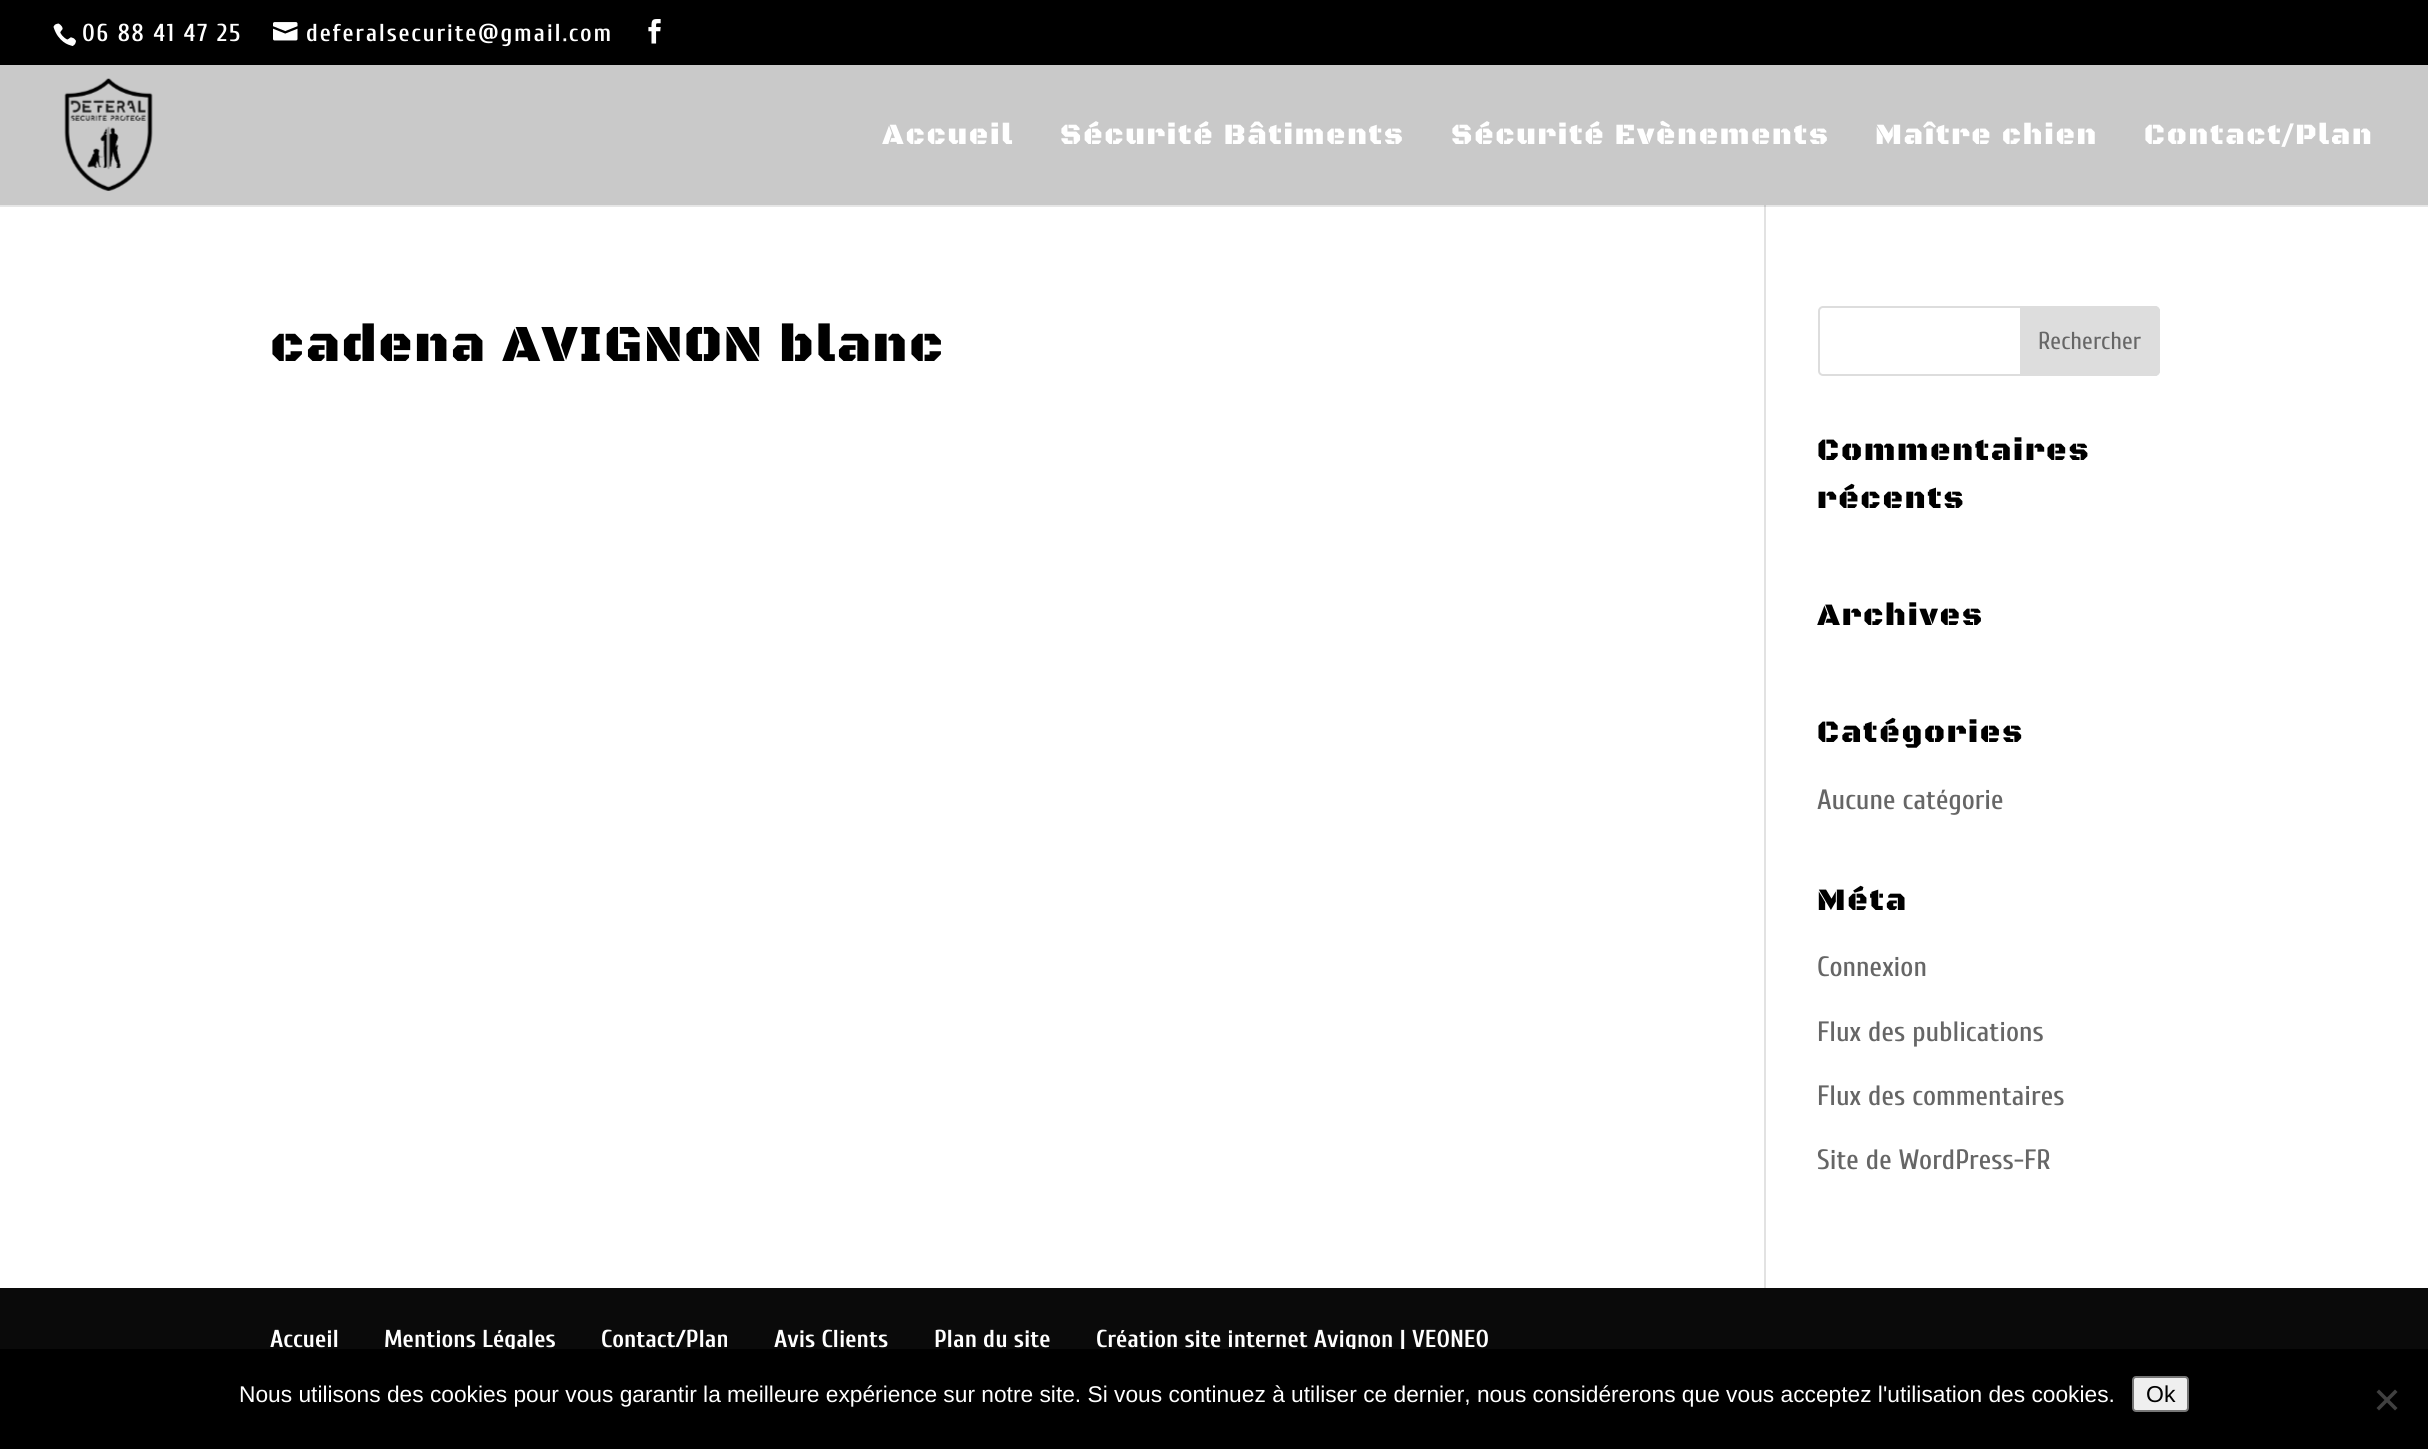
#include <cairo/cairo.h>
#include <math.h>
#include <stddef.h>

static cairo_t *cr;

static void use_color(int r, int g, int b) {
  cairo_set_source_rgb(cr, r / 255.0, g / 255.0, b / 255.0);
}

static void text(double x, double y, const char *s, const char *family, double size, int italic, int bold, int r, int g, int b) {
  cairo_select_font_face(cr, family, italic ? CAIRO_FONT_SLANT_ITALIC : CAIRO_FONT_SLANT_NORMAL,
    bold ? CAIRO_FONT_WEIGHT_BOLD : CAIRO_FONT_WEIGHT_NORMAL);
  cairo_set_font_size(cr, size);
  use_color(r, g, b);
  cairo_move_to(cr, x, y);
  cairo_show_text(cr, s);
}

static void spaced_text(double x, double y, const char *s, double letter, double word) {
  cairo_move_to(cr, x, y);
  while (*s) {
    char ch[5] = {0};
    int n = 0;
    do ch[n++] = *s++; while ((*s & 0xC0) == 0x80);
    cairo_show_text(cr, ch);
    cairo_rel_move_to(cr, letter + word * (*ch == ' '), 0);
  }
}

static void box(double x, double y, double w, double h, int r, int g, int b) {
  use_color(r, g, b);
  cairo_rectangle(cr, x, y, w, h);
  cairo_fill(cr);
}

static void round_rect(double x, double y, double w, double h, double r) {
  cairo_new_sub_path(cr);
  cairo_arc(cr, x + w - r, y + h - r, r, 0, M_PI / 2);
  cairo_arc(cr, x + r, y + h - r, r, M_PI / 2, M_PI);
  cairo_arc(cr, x + r, y + r, r, M_PI, 1.5 * M_PI);
  cairo_arc(cr, x + w - r, y + r, r, 1.5 * M_PI, 2 * M_PI);
  cairo_close_path(cr);
}

static void picture(const char *path, double x, double y, double w, double h) {
  cairo_surface_t *image = cairo_image_surface_create_from_png(path);
  cairo_save(cr);
  cairo_set_source_surface(cr, image, x, y);
  cairo_rectangle(cr, x, y, w, h);
  cairo_fill(cr);
  cairo_restore(cr);
  cairo_surface_destroy(image);
}

static void draw(void) {
  use_color(255, 255, 255);
  cairo_paint(cr);
  box(0, 205, 2428, 2, 230, 230, 230);
  box(0, 0, 2428, 65, 0, 0, 0);
  picture("img_01.png", 53, 23, 23, 23);
  picture("img_02.png", 273, 22, 25, 19);
  picture("img_03.png", 648, 19, 13, 25);
  box(0, 65, 2428, 140, 201, 201, 201);
  picture("img_04.png", 64, 78, 89, 113);
  box(1764, 205, 2, 1083, 226, 226, 226);
  box(1764, 205, 2, 2, 203, 203, 203);
  round_rect(1819, 307, 340, 68, 4);
  use_color(221, 221, 221);
  cairo_stroke(cr);
  cairo_new_path(cr);
  cairo_move_to(cr, 2021, 307);
  cairo_line_to(cr, 2155, 307);
  cairo_curve_to(cr, 2157, 307, 2159, 309, 2159, 311);
  cairo_line_to(cr, 2159, 371);
  cairo_curve_to(cr, 2159, 373, 2157, 375, 2155, 375);
  cairo_line_to(cr, 2021, 375);
  cairo_close_path(cr);
  cairo_fill_preserve(cr);
  cairo_stroke(cr);
  box(0, 1288, 2428, 61, 10, 10, 10);
  cairo_select_font_face(cr, "Cuprum SemiBold", CAIRO_FONT_SLANT_NORMAL, CAIRO_FONT_WEIGHT_NORMAL);
  cairo_set_font_size(cr, 24.5);
  use_color(255, 255, 255);
  spaced_text(82, 41, "06 88 41 47 25", 1.75, 0);
  spaced_text(306, 41, "deferalsecurite@gmail.com", 1.75, 0);
  cairo_select_font_face(cr, "Black Ops One Black", CAIRO_FONT_SLANT_NORMAL, CAIRO_FONT_WEIGHT_NORMAL);
  cairo_set_font_size(cr, 29.75);
  spaced_text(882, 144, "Accueil", 1.75, 0);
  spaced_text(1060, 144, "Sécurité Bâtiments", 1.75, 0);
  spaced_text(1451, 144, "Sécurité Evènements", 1.75, 0);
  spaced_text(1875, 144, "Maître chien", 1.75, 0);
  spaced_text(2144, 144, "Contact/Plan", 1.75, 0);
  cairo_set_font_size(cr, 52.5);
  use_color(0, 0, 0);
  spaced_text(270, 361, "cadena AVIGNON blanc", 1.75, 0);
  text(2038, 349, "Rechercher", "Cuprum", 24.5, 0, 0, 102, 102, 102);
  cairo_select_font_face(cr, "Black Ops One Black", CAIRO_FONT_SLANT_NORMAL, CAIRO_FONT_WEIGHT_NORMAL);
  cairo_set_font_size(cr, 31.5);
  use_color(0, 0, 0);
  spaced_text(1817, 460, "Commentaires", 1.75, 0);
  spaced_text(1817, 508, "récents", 1.75, 0);
  spaced_text(1817, 625, "Archives", 1.75, 0);
  spaced_text(1817, 742, "Catégories", 1.75, 0);
  text(1817, 809, "Aucune catégorie", "Cuprum Medium", 28, 0, 0, 102, 102, 102);
  cairo_select_font_face(cr, "Black Ops One Black", CAIRO_FONT_SLANT_NORMAL, CAIRO_FONT_WEIGHT_NORMAL);
  cairo_set_font_size(cr, 31.5);
  use_color(0, 0, 0);
  spaced_text(1817, 910, "Méta", 1.75, 0);
  text(1817, 976, "Connexion", "Cuprum Medium", 28, 0, 0, 102, 102, 102);
  text(1817, 1041, "Flux des publications", "Cuprum Medium", 28, 0, 0, 102, 102, 102);
  text(1817, 1105, "Flux des commentaires", "Cuprum Medium", 28, 0, 0, 102, 102, 102);
  text(1817, 1169, "Site de WordPress-FR", "Cuprum Medium", 28, 0, 0, 102, 102, 102);
  text(270, 1347, "Accueil", "Cuprum", 24.5, 0, 1, 255, 255, 255);
  text(384, 1347, "Mentions Légales", "Cuprum", 24.5, 0, 1, 255, 255, 255);
  text(601, 1347, "Contact/Plan", "Cuprum", 24.5, 0, 1, 255, 255, 255);
  text(774, 1347, "Avis Clients", "Cuprum", 24.5, 0, 1, 255, 255, 255);
  text(934, 1347, "Plan du site", "Cuprum", 24.5, 0, 1, 255, 255, 255);
  text(1096, 1347, "Création site internet Avignon | VEONEO", "Cuprum", 24.5, 0, 1, 255, 255, 255);
  box(0, 1349, 2428, 100, 0, 0, 0);
  text(239, 1402, "Nous utilisons des cookies pour vous garantir la meilleure expérience sur notre site. Si vous continuez à utiliser ce dernier, nous considérerons que vous acceptez l'utilisation des cookies.", "Liberation Sans", 22.75, 0, 0, 255, 255, 255);
  use_color(239, 239, 239);
  round_rect(2133, 1377, 55, 34, 3);
  cairo_fill_preserve(cr);
  use_color(118, 118, 118);
  cairo_stroke(cr);
  text(2146, 1402, "Ok", "Liberation Sans", 23, 0, 0, 0, 0, 0);
  use_color(64, 64, 64);
  cairo_new_path(cr);
  cairo_move_to(cr, 2395, 1389.5);
  cairo_line_to(cr, 2397.5, 1392);
  cairo_line_to(cr, 2379, 1410.5);
  cairo_line_to(cr, 2376.5, 1408);
  cairo_close_path(cr);
  cairo_fill(cr);
  cairo_new_path(cr);
  cairo_move_to(cr, 2376.5, 1392);
  cairo_line_to(cr, 2379, 1389.5);
  cairo_line_to(cr, 2397.5, 1408);
  cairo_line_to(cr, 2395, 1410.5);
  cairo_close_path(cr);
  cairo_fill(cr);
}

int main(void) {
  cairo_surface_t *surface = cairo_image_surface_create(CAIRO_FORMAT_RGB24, 2428, 1449);
  cr = cairo_create(surface);
  cairo_font_options_t *options = cairo_font_options_create();
  cairo_font_options_set_hint_metrics(options, CAIRO_HINT_METRICS_OFF);
  cairo_font_options_set_hint_style(options, CAIRO_HINT_STYLE_NONE);
  cairo_set_font_options(cr, options);
  cairo_set_miter_limit(cr, 4);
  draw();
  cairo_surface_write_to_png(surface, "out.png");
  cairo_font_options_destroy(options);
  cairo_destroy(cr);
  cairo_surface_destroy(surface);
  return 0;
}
